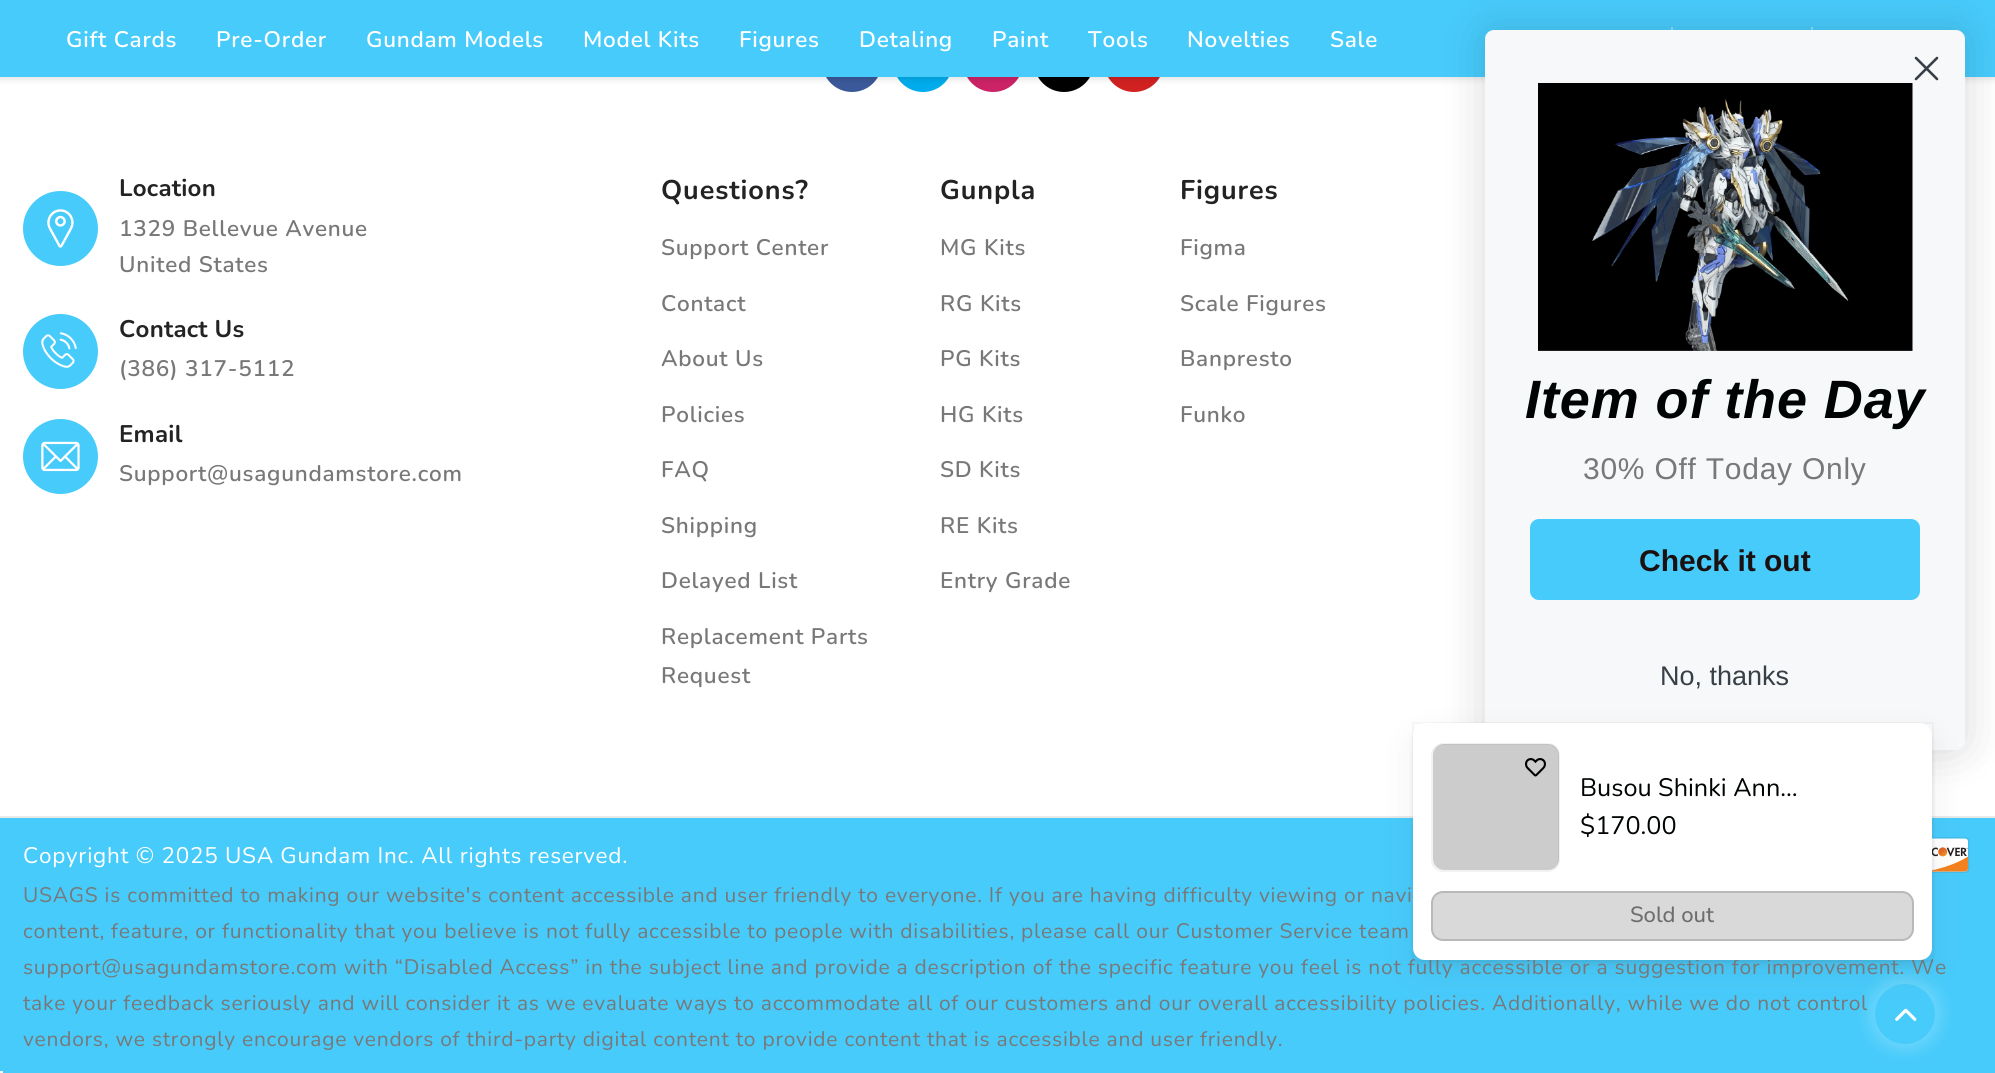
#include <cairo/cairo.h>
#include <math.h>
#include <stddef.h>

static cairo_t *cr;

static void use_color(int r, int g, int b) {
  cairo_set_source_rgb(cr, r / 255.0, g / 255.0, b / 255.0);
}

static void text(double x, double y, const char *s, const char *family, double size, int italic, int bold, int r, int g, int b) {
  cairo_select_font_face(cr, family, italic ? CAIRO_FONT_SLANT_ITALIC : CAIRO_FONT_SLANT_NORMAL,
    bold ? CAIRO_FONT_WEIGHT_BOLD : CAIRO_FONT_WEIGHT_NORMAL);
  cairo_set_font_size(cr, size);
  use_color(r, g, b);
  cairo_move_to(cr, x, y);
  cairo_show_text(cr, s);
}

static void spaced_text(double x, double y, const char *s, double letter, double word) {
  cairo_move_to(cr, x, y);
  while (*s) {
    char ch[5] = {0};
    int n = 0;
    do ch[n++] = *s++; while ((*s & 0xC0) == 0x80);
    cairo_show_text(cr, ch);
    cairo_rel_move_to(cr, letter + word * (*ch == ' '), 0);
  }
}

static void box(double x, double y, double w, double h, int r, int g, int b) {
  use_color(r, g, b);
  cairo_rectangle(cr, x, y, w, h);
  cairo_fill(cr);
}

static void round_rect(double x, double y, double w, double h, double r) {
  cairo_new_sub_path(cr);
  cairo_arc(cr, x + w - r, y + h - r, r, 0, M_PI / 2);
  cairo_arc(cr, x + r, y + h - r, r, M_PI / 2, M_PI);
  cairo_arc(cr, x + r, y + r, r, M_PI, 1.5 * M_PI);
  cairo_arc(cr, x + w - r, y + r, r, 1.5 * M_PI, 2 * M_PI);
  cairo_close_path(cr);
}

static void shadow(double x, double y, double w, double h, double r, double blur, double alpha) {
  cairo_push_group_with_content(cr, CAIRO_CONTENT_ALPHA);
  cairo_set_operator(cr, CAIRO_OPERATOR_SOURCE);
  for (int i = 15; i >= -15 && fmin(w, h) + blur * i / 3 > 0; i -= 2) {
    double e = blur * i / 6;
    cairo_set_source_rgba(cr, 0, 0, 0, alpha * erfc((i - 1) / 8.5) / 2);
    round_rect(x - e, y - e, w + 2 * e, h + 2 * e, fmax(0, fmin(r + e + blur * .6, fmin(w, h) / 2 + e)));
    cairo_fill(cr);
  }
  cairo_pattern_t *soft = cairo_pop_group(cr);
  cairo_mask(cr, soft);
  cairo_pattern_destroy(soft);
}

static void picture(const char *path, double x, double y, double w, double h) {
  cairo_surface_t *image = cairo_image_surface_create_from_png(path);
  cairo_save(cr);
  cairo_set_source_surface(cr, image, x, y);
  cairo_rectangle(cr, x, y, w, h);
  cairo_fill(cr);
  cairo_restore(cr);
  cairo_surface_destroy(image);
}

static void draw(void) {
  use_color(255, 255, 255);
  cairo_paint(cr);
  use_color(59, 89, 153);
  cairo_arc(cr, 852, 62, 30, 0, 2 * M_PI);
  cairo_fill(cr);
  use_color(0, 172, 237);
  cairo_arc(cr, 923, 62, 30, 0, 2 * M_PI);
  cairo_fill(cr);
  use_color(204, 35, 102);
  cairo_arc(cr, 993, 62, 30, 0, 2 * M_PI);
  cairo_fill(cr);
  use_color(0, 0, 0);
  cairo_arc(cr, 1064, 62, 30, 0, 2 * M_PI);
  cairo_fill(cr);
  use_color(209, 33, 33);
  cairo_arc(cr, 1134, 62, 30, 0, 2 * M_PI);
  cairo_fill(cr);
  use_color(0, 0, 0);
  shadow(-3, -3, 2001, 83, 0, 3, 0.1);
  box(0, 0, 1995, 77, 71, 203, 251);
  box(1671, 27, 2, 3, 135, 221, 252);
  box(1811, 27, 2, 3, 135, 221, 252);
  use_color(71, 203, 251);
  cairo_arc(cr, 60.5, 228.5, 37.5, 0, 2 * M_PI);
  cairo_fill(cr);
  picture("img_01.png", 47, 209, 27, 39);
  cairo_arc(cr, 60.5, 351.5, 37.5, 0, 2 * M_PI);
  cairo_fill(cr);
  picture("img_02.png", 41, 332, 36, 36);
  cairo_arc(cr, 60.5, 456.5, 37.5, 0, 2 * M_PI);
  cairo_fill(cr);
  picture("img_03.png", 41, 441, 39, 31);
  box(0, 818, 1995, 255, 71, 203, 251);
  box(0, 816, 1995, 2, 233, 233, 233);
  use_color(0, 0, 0);
  shadow(1485, 30, 480, 720, 9, 22.5, 0.15);
  use_color(247, 248, 250);
  round_rect(1485, 30, 480, 720, 9);
  cairo_fill(cr);
  cairo_new_path(cr);
  cairo_move_to(cr, 1916, 58);
  cairo_line_to(cr, 1937, 79);
  cairo_move_to(cr, 1916, 79);
  cairo_line_to(cr, 1937, 58);
  cairo_close_path(cr);
  use_color(55, 63, 71);
  cairo_set_line_width(cr, 2.6);
  cairo_set_line_cap(cr, CAIRO_LINE_CAP_ROUND);
  cairo_set_line_join(cr, CAIRO_LINE_JOIN_ROUND);
  cairo_stroke(cr);
  picture("img_04.png", 1538, 83, 375, 268);
  use_color(71, 203, 251);
  round_rect(1530, 519, 390, 81, 9);
  cairo_fill(cr);
  picture("img_06.png", 1932, 837, 38, 36);
  use_color(255, 255, 255);
  shadow(1869, 978, 72, 72, 36, 7.5, 0.2);
  use_color(71, 203, 251);
  cairo_arc(cr, 1905, 1014, 30, 0, 2 * M_PI);
  cairo_fill(cr);
  picture("img_07.png", 1895, 1008, 22, 13);
  use_color(55, 63, 71);
  shadow(1413, 737, 519, 235, 12, 19, 0.08);
  shadow(1413, 729, 519, 237, 12, 3, 0.08);
  box(0, 1071, 3, 2, 245, 245, 245);
  cairo_select_font_face(cr, "Nunito SemiBold", CAIRO_FONT_SLANT_NORMAL, CAIRO_FONT_WEIGHT_NORMAL);
  cairo_set_font_size(cr, 22.5);
  use_color(255, 255, 255);
  spaced_text(66, 47, "Gift Cards", 0.75, 0);
  spaced_text(216, 47, "Pre-Order", 0.75, 0);
  spaced_text(366, 47, "Gundam Models", 0.75, 0);
  spaced_text(583, 47, "Model Kits", 0.75, 0);
  spaced_text(739, 47, "Figures", 0.75, 0);
  spaced_text(859, 47, "Detaling", 0.75, 0);
  spaced_text(992, 47, "Paint", 0.75, 0);
  spaced_text(1088, 47, "Tools", 0.75, 0);
  spaced_text(1187, 47, "Novelties", 0.75, 0);
  spaced_text(1330, 47, "Sale", 0.75, 0);
  cairo_select_font_face(cr, "Nunito", CAIRO_FONT_SLANT_NORMAL, CAIRO_FONT_WEIGHT_BOLD);
  cairo_set_font_size(cr, 24);
  use_color(35, 35, 35);
  spaced_text(119, 196, "Location", 0.25, 0);
  cairo_select_font_face(cr, "Nunito SemiBold", CAIRO_FONT_SLANT_NORMAL, CAIRO_FONT_WEIGHT_NORMAL);
  cairo_set_font_size(cr, 22.5);
  use_color(120, 120, 120);
  spaced_text(119, 236, "1329 Bellevue Avenue", 0.75, 0);
  spaced_text(119, 272, "United States", 0.75, 0);
  cairo_select_font_face(cr, "Nunito", CAIRO_FONT_SLANT_NORMAL, CAIRO_FONT_WEIGHT_BOLD);
  cairo_set_font_size(cr, 24);
  use_color(35, 35, 35);
  spaced_text(119, 337, "Contact Us", 0.25, 0);
  cairo_select_font_face(cr, "Nunito SemiBold", CAIRO_FONT_SLANT_NORMAL, CAIRO_FONT_WEIGHT_NORMAL);
  cairo_set_font_size(cr, 22.5);
  use_color(120, 120, 120);
  spaced_text(119, 376, "(386) 317-5112", 0.75, 0);
  cairo_select_font_face(cr, "Nunito", CAIRO_FONT_SLANT_NORMAL, CAIRO_FONT_WEIGHT_BOLD);
  cairo_set_font_size(cr, 24);
  use_color(35, 35, 35);
  spaced_text(119, 442, "Email", 0.25, 0);
  cairo_select_font_face(cr, "Nunito SemiBold", CAIRO_FONT_SLANT_NORMAL, CAIRO_FONT_WEIGHT_NORMAL);
  cairo_set_font_size(cr, 22.5);
  use_color(120, 120, 120);
  spaced_text(119, 481, "Support@usagundamstore.com", 0.75, 0);
  cairo_select_font_face(cr, "Nunito", CAIRO_FONT_SLANT_NORMAL, CAIRO_FONT_WEIGHT_BOLD);
  cairo_set_font_size(cr, 27);
  use_color(35, 35, 35);
  spaced_text(661, 199, "Questions?", 0.9, 0);
  cairo_select_font_face(cr, "Nunito SemiBold", CAIRO_FONT_SLANT_NORMAL, CAIRO_FONT_WEIGHT_NORMAL);
  cairo_set_font_size(cr, 22.5);
  use_color(120, 120, 120);
  spaced_text(661, 255, "Support Center", 0.75, 0);
  spaced_text(661, 311, "Contact", 0.75, 0);
  spaced_text(661, 366, "About Us", 0.75, 0);
  spaced_text(661, 422, "Policies", 0.75, 0);
  spaced_text(661, 477, "FAQ", 0.75, 0);
  spaced_text(661, 533, "Shipping", 0.75, 0);
  spaced_text(661, 588, "Delayed List", 0.75, 0);
  spaced_text(661, 644, "Replacement Parts", 0.75, 0);
  spaced_text(661, 683, "Request", 0.75, 0);
  cairo_select_font_face(cr, "Nunito", CAIRO_FONT_SLANT_NORMAL, CAIRO_FONT_WEIGHT_BOLD);
  cairo_set_font_size(cr, 27);
  use_color(35, 35, 35);
  spaced_text(940, 199, "Gunpla", 0.9, 0);
  cairo_select_font_face(cr, "Nunito SemiBold", CAIRO_FONT_SLANT_NORMAL, CAIRO_FONT_WEIGHT_NORMAL);
  cairo_set_font_size(cr, 22.5);
  use_color(120, 120, 120);
  spaced_text(940, 255, "MG Kits", 0.75, 0);
  spaced_text(940, 311, "RG Kits", 0.75, 0);
  spaced_text(940, 366, "PG Kits", 0.75, 0);
  spaced_text(940, 422, "HG Kits", 0.75, 0);
  spaced_text(940, 477, "SD Kits", 0.75, 0);
  spaced_text(940, 533, "RE Kits", 0.75, 0);
  spaced_text(940, 588, "Entry Grade", 0.75, 0);
  cairo_select_font_face(cr, "Nunito", CAIRO_FONT_SLANT_NORMAL, CAIRO_FONT_WEIGHT_BOLD);
  cairo_set_font_size(cr, 27);
  use_color(35, 35, 35);
  spaced_text(1180, 199, "Figures", 0.9, 0);
  cairo_select_font_face(cr, "Nunito SemiBold", CAIRO_FONT_SLANT_NORMAL, CAIRO_FONT_WEIGHT_NORMAL);
  cairo_set_font_size(cr, 22.5);
  use_color(120, 120, 120);
  spaced_text(1180, 255, "Figma", 0.75, 0);
  spaced_text(1180, 311, "Scale Figures", 0.75, 0);
  spaced_text(1180, 366, "Banpresto", 0.75, 0);
  spaced_text(1180, 422, "Funko", 0.75, 0);
  cairo_select_font_face(cr, "Liberation Sans", CAIRO_FONT_SLANT_ITALIC, CAIRO_FONT_WEIGHT_BOLD);
  cairo_set_font_size(cr, 54);
  use_color(0, 3, 3);
  spaced_text(1525, 418, "Item of the Day", 0.9, 0);
  cairo_select_font_face(cr, "Liberation Sans", CAIRO_FONT_SLANT_NORMAL, CAIRO_FONT_WEIGHT_NORMAL);
  cairo_set_font_size(cr, 30);
  use_color(120, 120, 120);
  spaced_text(1583, 479, "30% Off Today Only", 0.75, 0);
  text(1639, 571, "Check it out", "Liberation Sans", 30, 0, 1, 27, 17, 17);
  text(1660, 685, "No, thanks", "Liberation Sans", 27, 0, 0, 55, 63, 71);
  cairo_select_font_face(cr, "Nunito", CAIRO_FONT_SLANT_NORMAL, CAIRO_FONT_WEIGHT_NORMAL);
  cairo_set_font_size(cr, 22.5);
  use_color(255, 255, 255);
  spaced_text(23, 863, "Copyright © 2025 USA Gundam Inc. All rights reserved.", 0.75, 0);
  cairo_set_font_size(cr, 21);
  use_color(120, 120, 120);
  spaced_text(23, 902, "USAGS is committed to making our website's content accessible and user friendly to everyone. If you are having difficulty viewing or navi", 0.75, 0);
  spaced_text(23, 938, "content, feature, or functionality that you believe is not fully accessible to people with disabilities, please call our Customer Service team", 0.75, 0);
  spaced_text(23, 974, "support@usagundamstore.com with “Disabled Access” in the subject line and provide a description of the specific feature you feel is not fully accessible or a suggestion for improvement. We", 0.75, 0);
  cairo_rectangle(cr, 1413, 723, 520, 238);
  cairo_set_source_rgba(cr, 0.216, 0.247, 0.278, 0.04);
  cairo_set_line_width(cr, 2);
  cairo_set_line_cap(cr, CAIRO_LINE_CAP_BUTT);
  cairo_set_line_join(cr, CAIRO_LINE_JOIN_MITER);
  cairo_stroke(cr);
  use_color(255, 255, 255);
  round_rect(1413, 723, 519, 237, 12);
  cairo_fill(cr);
  use_color(217, 217, 217);
  round_rect(1431, 891, 483, 50, 12);
  cairo_fill(cr);
  round_rect(1432, 892, 481, 48, 11);
  cairo_set_source_rgba(cr, 0, 0, 0, 0.15);
  cairo_stroke(cr);
  text(1630, 922, "Sold out", "Nunito Medium", 22, 0, 0, 109, 109, 109);
  round_rect(1432, 744, 127, 127, 11);
  use_color(242, 242, 242);
  cairo_stroke(cr);
  cairo_set_source_rgba(cr, 0, 0, 0, 0.2);
  round_rect(1433, 744, 126, 126, 11);
  cairo_fill(cr);
  picture("img_05.png", 1525, 758, 21, 19);
  text(1580, 796, "Busou Shinki Ann…", "Nunito", 25.25, 0, 0, 0, 3, 3);
  text(1580, 834, "$170.00", "Nunito", 25.25, 0, 0, 0, 3, 3);
  cairo_set_font_size(cr, 21);
  use_color(120, 120, 120);
  spaced_text(23, 1010, "take your feedback seriously and will consider it as we evaluate ways to accommodate all of our customers and our overall accessibility policies. Additionally, while we do not control", 0.75, 0);
  spaced_text(23, 1046, "vendors, we strongly encourage vendors of third-party digital content to provide content that is accessible and user friendly.", 0.75, 0);
}

int main(void) {
  cairo_surface_t *surface = cairo_image_surface_create(CAIRO_FORMAT_RGB24, 1995, 1073);
  cr = cairo_create(surface);
  cairo_font_options_t *options = cairo_font_options_create();
  cairo_font_options_set_hint_metrics(options, CAIRO_HINT_METRICS_OFF);
  cairo_font_options_set_hint_style(options, CAIRO_HINT_STYLE_NONE);
  cairo_set_font_options(cr, options);
  cairo_set_miter_limit(cr, 4);
  draw();
  cairo_surface_write_to_png(surface, "out.png");
  cairo_font_options_destroy(options);
  cairo_destroy(cr);
  cairo_surface_destroy(surface);
  return 0;
}
